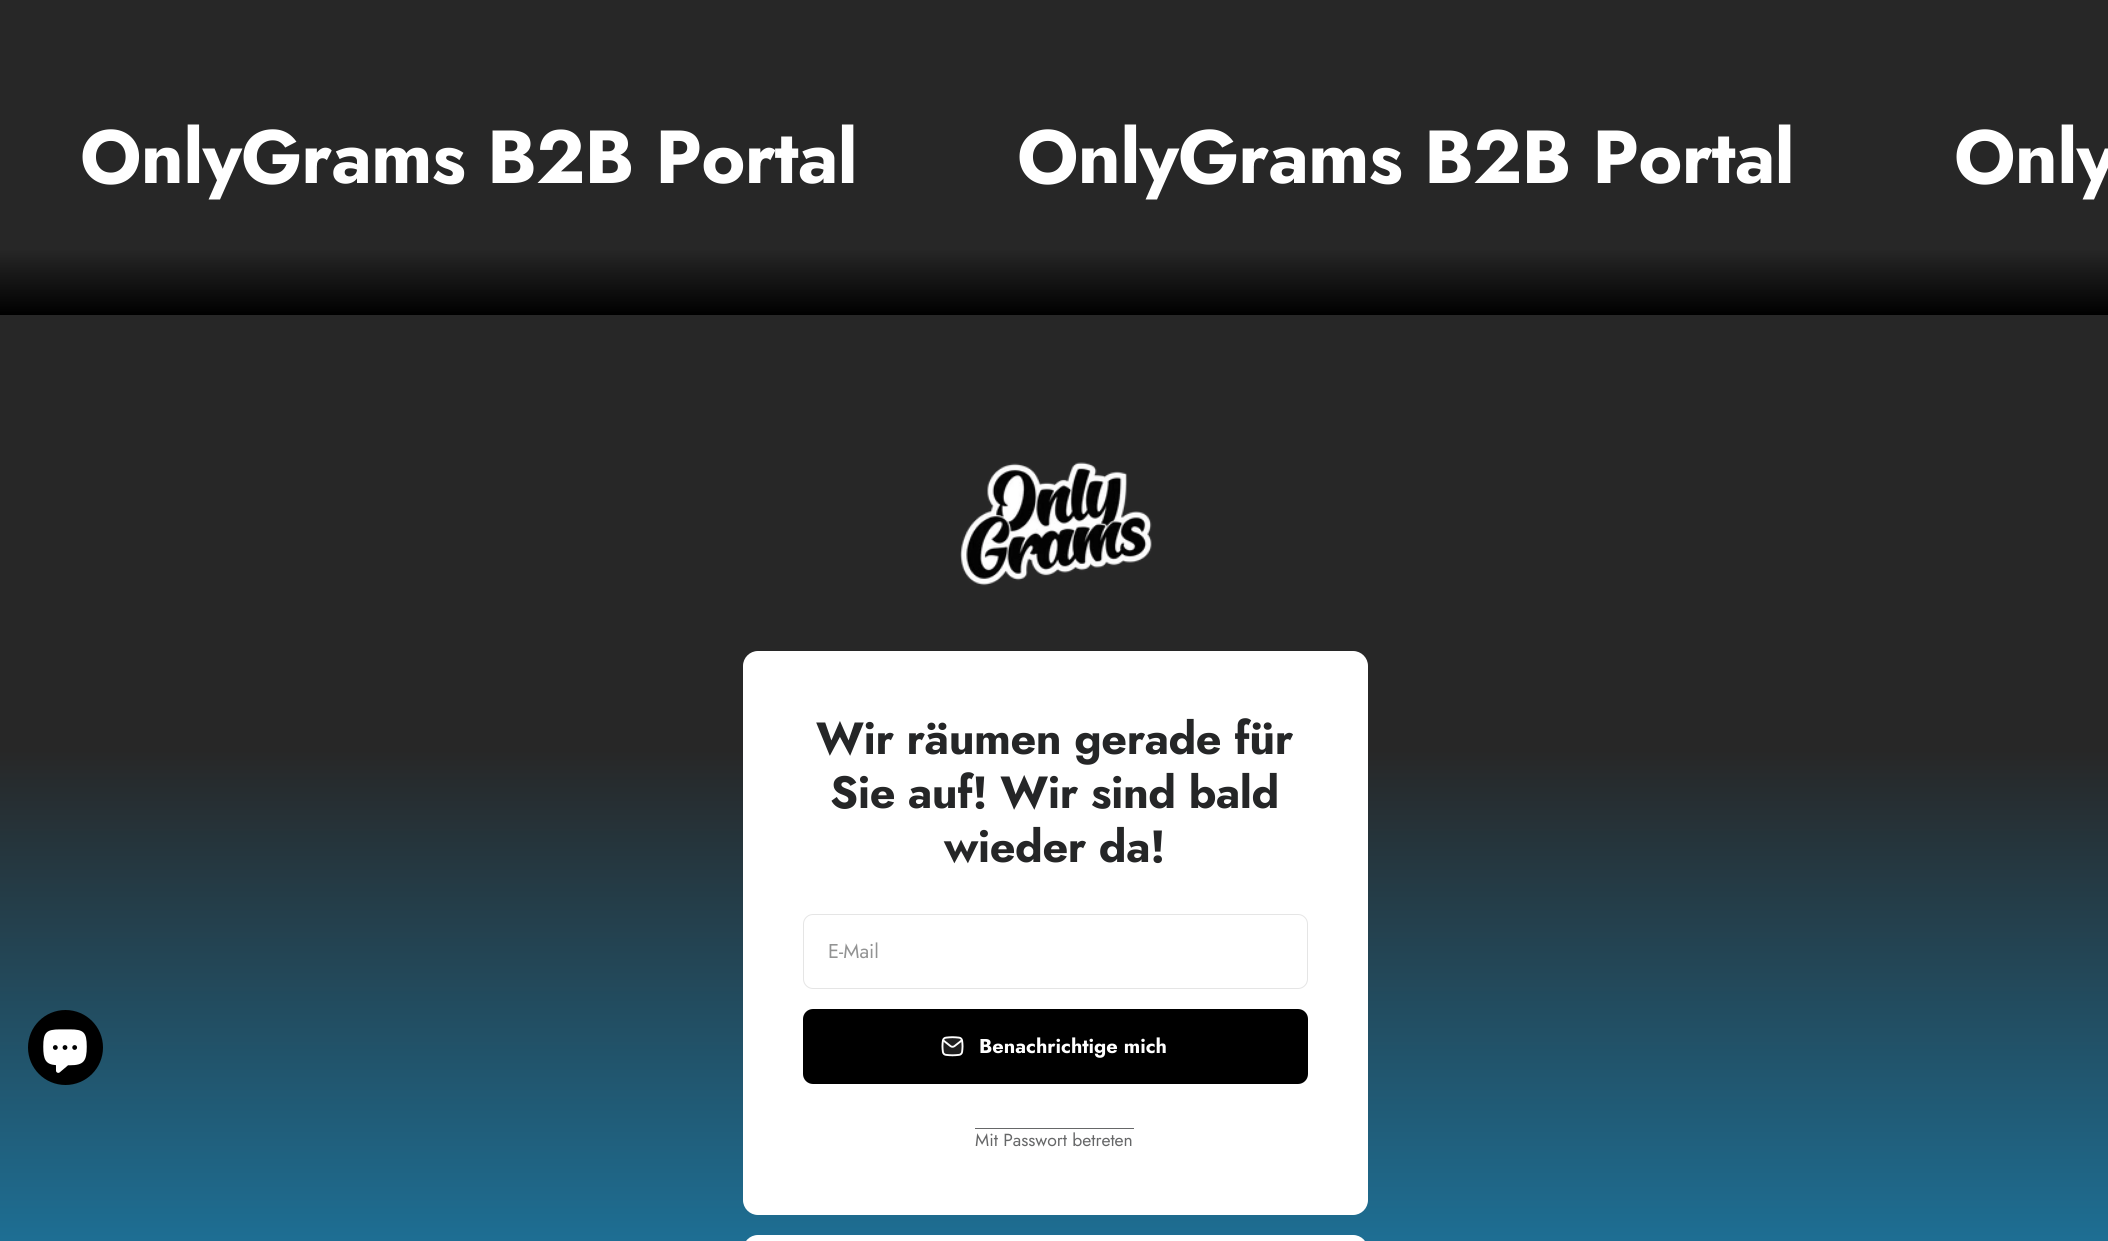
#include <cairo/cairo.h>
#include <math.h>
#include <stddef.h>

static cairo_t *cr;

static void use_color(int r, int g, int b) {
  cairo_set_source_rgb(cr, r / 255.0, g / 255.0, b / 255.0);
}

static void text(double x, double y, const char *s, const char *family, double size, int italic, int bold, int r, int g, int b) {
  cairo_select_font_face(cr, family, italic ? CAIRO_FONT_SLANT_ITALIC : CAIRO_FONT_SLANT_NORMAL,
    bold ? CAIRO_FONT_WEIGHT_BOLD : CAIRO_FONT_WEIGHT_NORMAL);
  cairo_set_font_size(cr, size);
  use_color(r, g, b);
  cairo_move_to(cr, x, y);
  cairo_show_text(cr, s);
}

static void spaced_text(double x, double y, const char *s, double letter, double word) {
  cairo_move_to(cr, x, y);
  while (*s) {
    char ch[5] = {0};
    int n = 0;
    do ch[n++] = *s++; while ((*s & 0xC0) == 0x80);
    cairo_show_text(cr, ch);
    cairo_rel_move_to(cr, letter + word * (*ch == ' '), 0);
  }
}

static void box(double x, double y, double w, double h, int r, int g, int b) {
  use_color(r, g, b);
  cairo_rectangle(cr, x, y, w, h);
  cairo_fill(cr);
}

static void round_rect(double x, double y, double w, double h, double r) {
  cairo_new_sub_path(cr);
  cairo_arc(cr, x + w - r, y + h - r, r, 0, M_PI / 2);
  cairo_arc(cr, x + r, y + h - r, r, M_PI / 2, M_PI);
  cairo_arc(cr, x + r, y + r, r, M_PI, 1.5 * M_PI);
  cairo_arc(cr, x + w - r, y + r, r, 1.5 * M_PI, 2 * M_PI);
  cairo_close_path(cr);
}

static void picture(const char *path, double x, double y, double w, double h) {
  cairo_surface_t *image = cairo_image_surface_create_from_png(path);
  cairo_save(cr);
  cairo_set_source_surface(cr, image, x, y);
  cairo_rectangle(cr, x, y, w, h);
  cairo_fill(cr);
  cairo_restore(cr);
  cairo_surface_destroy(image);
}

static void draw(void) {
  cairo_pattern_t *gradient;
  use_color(255, 255, 255);
  cairo_paint(cr);
  gradient = cairo_pattern_create_linear(1054, 315, 1054, 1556);
  cairo_pattern_add_color_stop_rgba(gradient, 0.35, 0.153, 0.153, 0.153, 1);
  cairo_pattern_add_color_stop_rgba(gradient, 1, 0.094, 0.612, 0.851, 1);
  cairo_set_source(cr, gradient);
  cairo_pattern_destroy(gradient);
  cairo_rectangle(cr, 0, 315, 2108, 926);
  cairo_fill(cr);
  use_color(0, 0, 0);
  cairo_arc(cr, 65.5, 1047.5, 37.5, 0, 2 * M_PI);
  cairo_fill(cr);
  picture("img_01.png", 43, 1029, 44, 44);
  gradient = cairo_pattern_create_linear(1054, 0, 1054, 315);
  cairo_pattern_add_color_stop_rgba(gradient, 0.79, 0.153, 0.153, 0.153, 1);
  cairo_pattern_add_color_stop_rgba(gradient, 1, 0, 0, 0, 1);
  cairo_set_source(cr, gradient);
  cairo_pattern_destroy(gradient);
  cairo_rectangle(cr, 0, 0, 2108, 315);
  cairo_fill(cr);
  picture("img_02.png", 960, 462, 192, 124);
  use_color(255, 255, 255);
  round_rect(743, 651, 625, 564, 15);
  cairo_fill(cr);
  round_rect(803.5, 914.5, 504, 74, 9.5);
  use_color(229, 229, 229);
  cairo_set_line_width(cr, 1);
  cairo_stroke(cr);
  use_color(0, 0, 0);
  round_rect(803, 1009, 505, 75, 10);
  cairo_fill(cr);
  picture("img_03.png", 941, 1036, 23, 21);
  box(975, 1128, 159, 1, 102, 103, 104);
  use_color(255, 255, 255);
  round_rect(743, 1235, 625, 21, 15);
  cairo_fill(cr);
  cairo_select_font_face(cr, "Jost", CAIRO_FONT_SLANT_NORMAL, CAIRO_FONT_WEIGHT_BOLD);
  cairo_set_font_size(cr, 75);
  spaced_text(80, 183, "OnlyGrams B2B Portal", -0.75, 0);
  spaced_text(1017, 183, "OnlyGrams B2B Portal", -0.75, 0);
  spaced_text(1954, 183, "Only", -0.75, 0);
  cairo_set_font_size(cr, 45);
  use_color(37, 38, 39);
  spaced_text(816, 754, "Wir räumen gerade für", -0.45, 0);
  spaced_text(830, 808, "Sie auf! Wir sind bald", -0.45, 0);
  spaced_text(944, 862, "wieder da!", -0.45, 0);
  text(828, 958, "E-Mail", "Jost", 20, 0, 0, 146, 147, 147);
  text(979, 1053, "Benachrichtige mich", "Jost", 20, 0, 1, 255, 255, 255);
  text(975, 1146, "Mit Passwort betreten", "Jost", 17.5, 0, 0, 102, 103, 104);
}

int main(void) {
  cairo_surface_t *surface = cairo_image_surface_create(CAIRO_FORMAT_RGB24, 2108, 1241);
  cr = cairo_create(surface);
  cairo_font_options_t *options = cairo_font_options_create();
  cairo_font_options_set_hint_metrics(options, CAIRO_HINT_METRICS_OFF);
  cairo_font_options_set_hint_style(options, CAIRO_HINT_STYLE_NONE);
  cairo_set_font_options(cr, options);
  cairo_set_miter_limit(cr, 4);
  draw();
  cairo_surface_write_to_png(surface, "out.png");
  cairo_font_options_destroy(options);
  cairo_destroy(cr);
  cairo_surface_destroy(surface);
  return 0;
}
